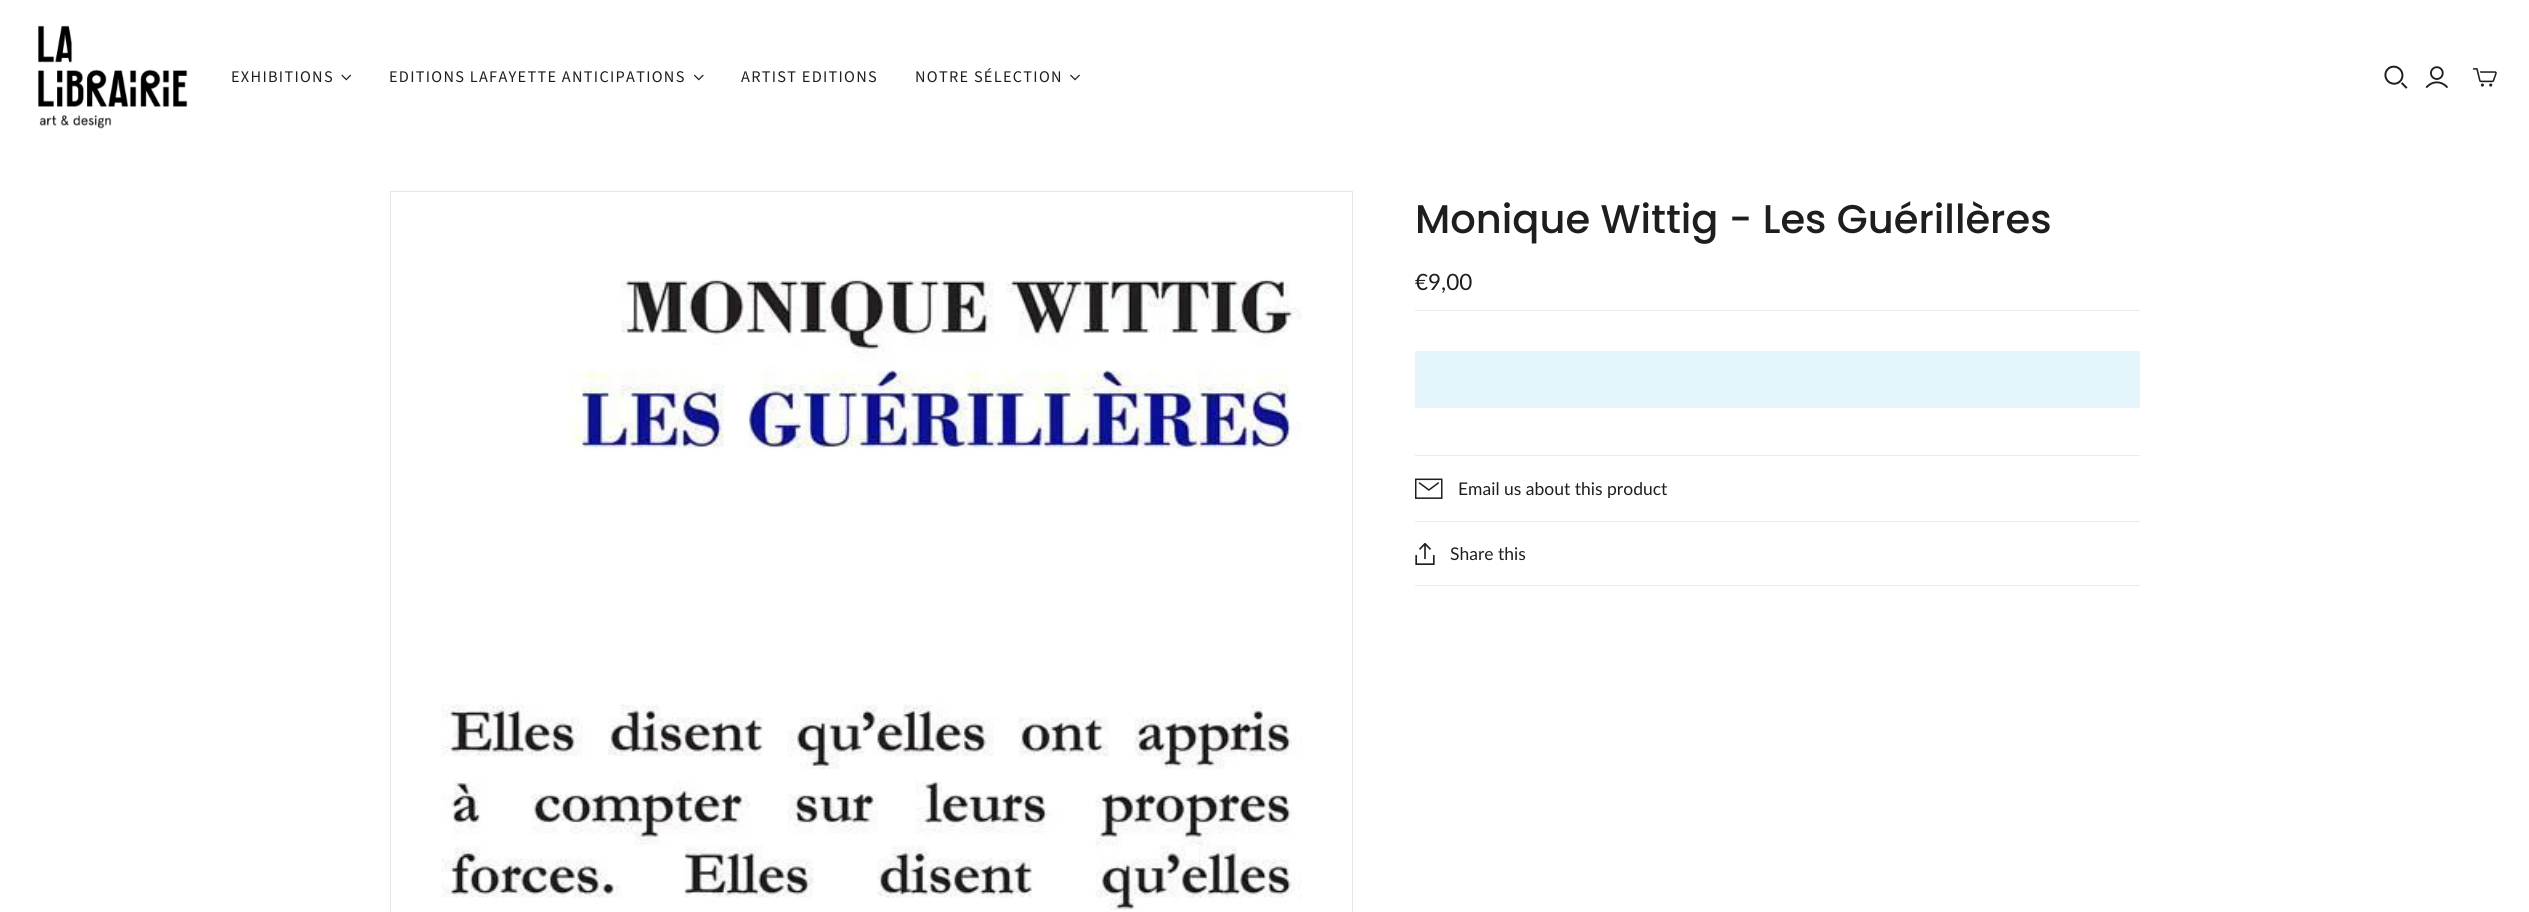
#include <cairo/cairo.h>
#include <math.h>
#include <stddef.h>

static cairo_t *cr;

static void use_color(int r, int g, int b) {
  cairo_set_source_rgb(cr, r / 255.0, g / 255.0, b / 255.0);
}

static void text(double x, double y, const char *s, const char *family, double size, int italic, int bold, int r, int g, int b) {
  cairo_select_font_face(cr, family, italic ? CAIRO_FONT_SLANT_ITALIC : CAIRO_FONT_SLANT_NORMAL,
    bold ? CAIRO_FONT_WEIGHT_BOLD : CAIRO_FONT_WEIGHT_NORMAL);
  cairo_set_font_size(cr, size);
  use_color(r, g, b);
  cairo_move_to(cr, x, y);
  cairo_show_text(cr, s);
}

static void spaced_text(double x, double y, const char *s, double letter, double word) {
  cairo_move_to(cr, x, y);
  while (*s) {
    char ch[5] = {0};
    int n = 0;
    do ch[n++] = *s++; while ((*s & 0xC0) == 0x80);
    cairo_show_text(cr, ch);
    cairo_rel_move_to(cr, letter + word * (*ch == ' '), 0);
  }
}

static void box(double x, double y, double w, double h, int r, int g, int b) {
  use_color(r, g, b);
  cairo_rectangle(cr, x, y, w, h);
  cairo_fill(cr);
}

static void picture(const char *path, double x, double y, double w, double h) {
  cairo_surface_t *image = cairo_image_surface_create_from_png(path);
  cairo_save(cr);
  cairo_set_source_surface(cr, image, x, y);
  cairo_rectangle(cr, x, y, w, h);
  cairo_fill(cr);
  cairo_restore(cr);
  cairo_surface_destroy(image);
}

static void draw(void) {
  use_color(255, 255, 255);
  cairo_paint(cr);
  picture("img_01.png", 38, 25, 150, 104);
  picture("img_02.png", 341, 74, 10, 7);
  picture("img_03.png", 694, 74, 10, 7);
  picture("img_04.png", 1070, 74, 10, 7);
  picture("img_05.png", 2384, 65, 24, 24);
  picture("img_06.png", 2425, 66, 24, 23);
  picture("img_07.png", 2473, 68, 24, 19);
  picture("img_08.png", 441, 279, 861, 632);
  cairo_rectangle(cr, 390.5, 191.5, 962, 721);
  use_color(230, 230, 230);
  cairo_set_line_width(cr, 1);
  cairo_stroke(cr);
  box(1415, 310, 725, 1, 235, 235, 235);
  box(1415, 455, 725, 1, 235, 235, 235);
  box(1415, 351, 725, 57, 229, 245, 252);
  box(1415, 521, 725, 1, 235, 235, 235);
  picture("img_09.png", 1415, 478, 28, 21);
  box(1415, 585, 725, 1, 235, 235, 235);
  picture("img_10.png", 1415, 543, 20, 22);
  cairo_select_font_face(cr, "Source Sans Pro", CAIRO_FONT_SLANT_NORMAL, CAIRO_FONT_WEIGHT_NORMAL);
  cairo_set_font_size(cr, 16.25);
  use_color(30, 30, 30);
  spaced_text(231, 82, "EXHIBITIONS", 1.3, 0);
  spaced_text(389, 82, "EDITIONS LAFAYETTE ANTICIPATIONS", 1.3, 0);
  spaced_text(741, 82, "ARTIST EDITIONS", 1.3, 0);
  spaced_text(915, 82, "NOTRE SÉLECTION", 1.3, 0);
  text(1415, 233, "Monique Wittig - Les Guérillères", "Poppins Medium", 40, 0, 0, 30, 30, 30);
  text(1415, 290, "€9,00", "Lato", 22.5, 0, 0, 30, 30, 30);
  text(1458, 495, "Email us about this product", "Lato", 17.5, 0, 0, 30, 30, 30);
  text(1450, 560, "Share this", "Lato", 17.5, 0, 0, 30, 30, 30);
}

int main(void) {
  cairo_surface_t *surface = cairo_image_surface_create(CAIRO_FORMAT_RGB24, 2529, 912);
  cr = cairo_create(surface);
  cairo_font_options_t *options = cairo_font_options_create();
  cairo_font_options_set_hint_metrics(options, CAIRO_HINT_METRICS_OFF);
  cairo_font_options_set_hint_style(options, CAIRO_HINT_STYLE_NONE);
  cairo_set_font_options(cr, options);
  cairo_set_miter_limit(cr, 4);
  draw();
  cairo_surface_write_to_png(surface, "out.png");
  cairo_font_options_destroy(options);
  cairo_destroy(cr);
  cairo_surface_destroy(surface);
  return 0;
}
